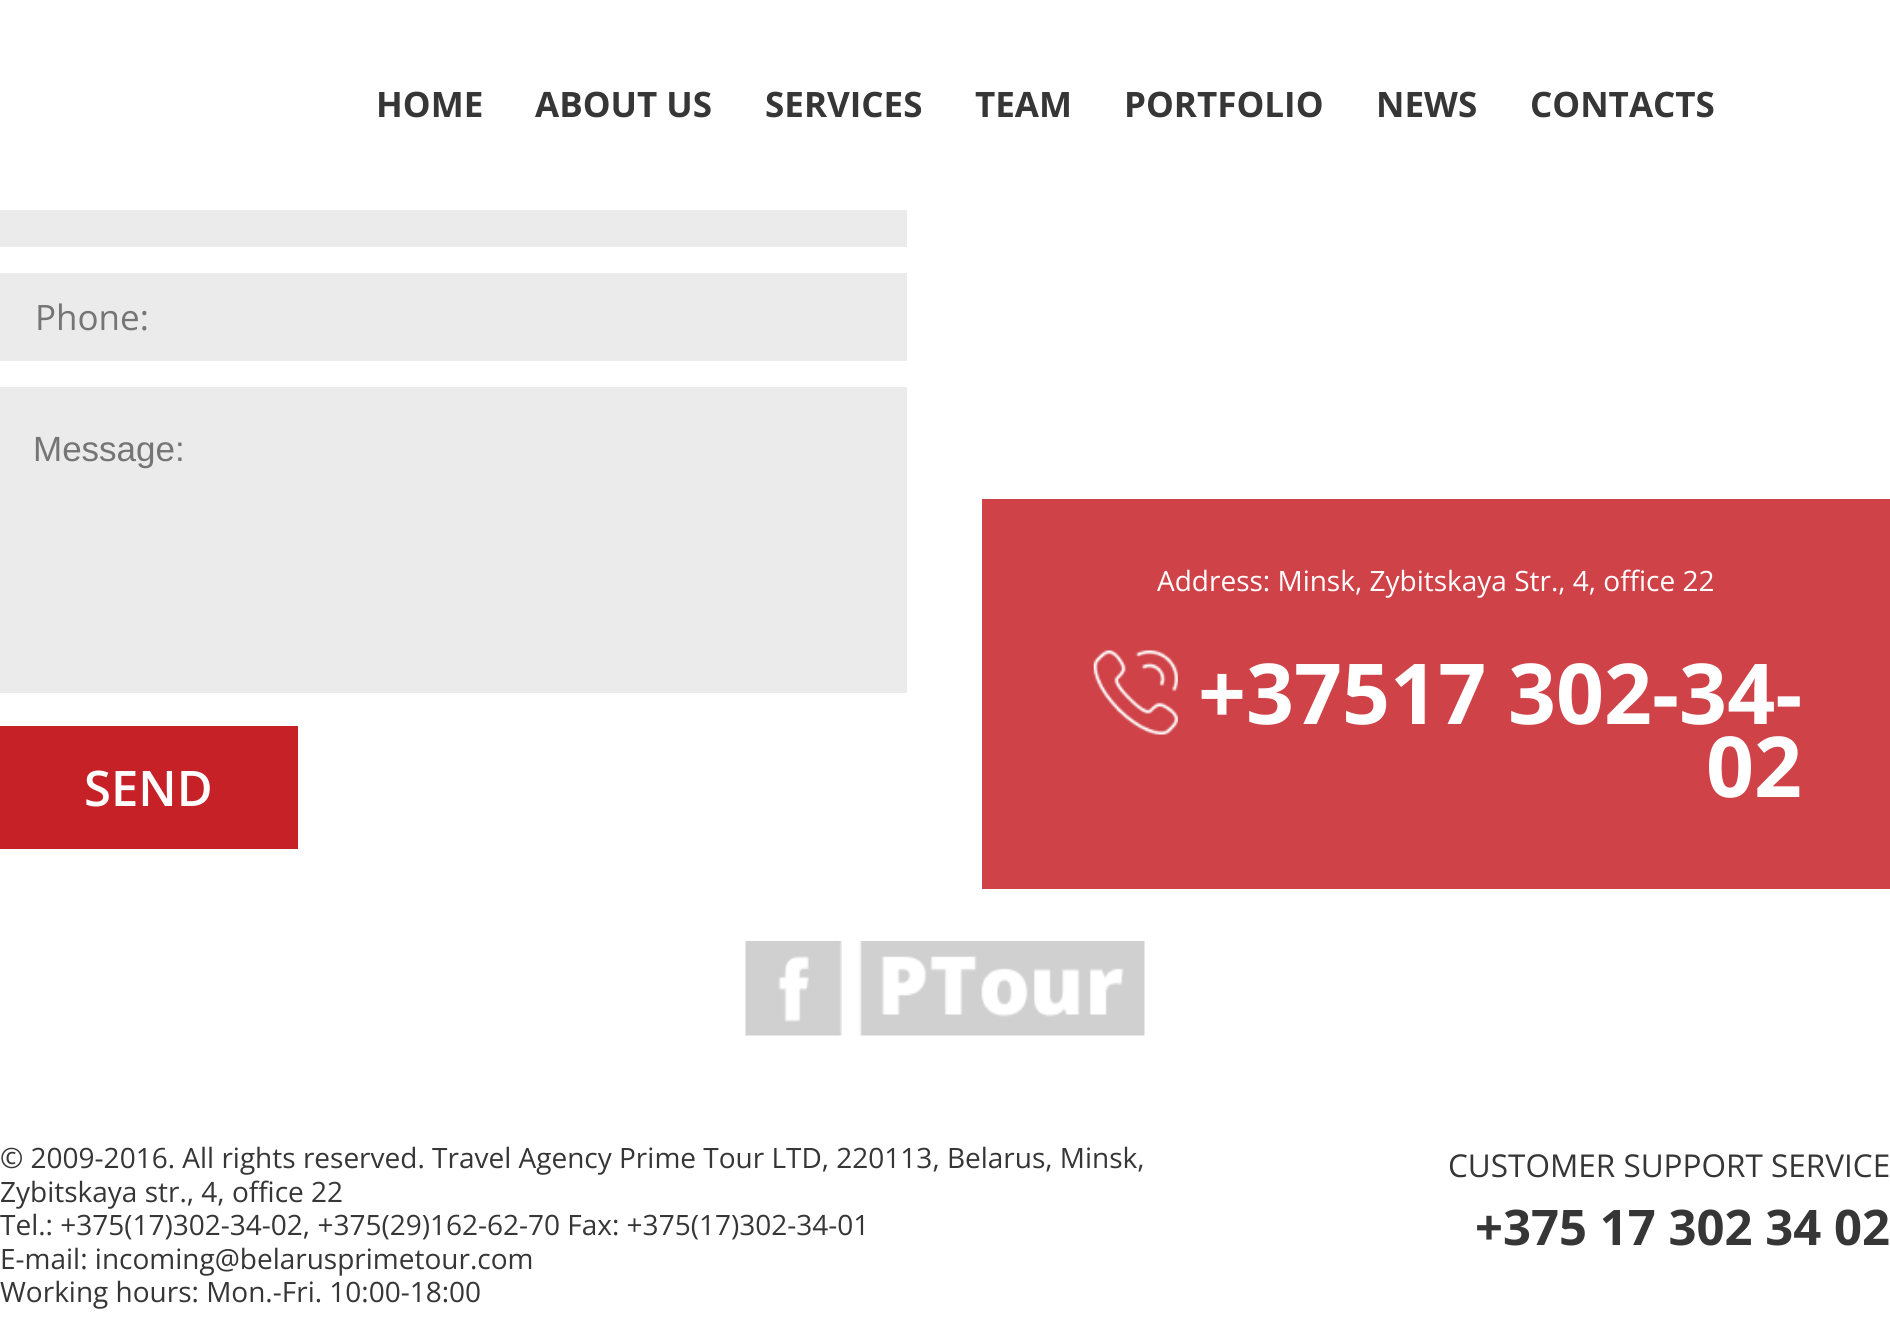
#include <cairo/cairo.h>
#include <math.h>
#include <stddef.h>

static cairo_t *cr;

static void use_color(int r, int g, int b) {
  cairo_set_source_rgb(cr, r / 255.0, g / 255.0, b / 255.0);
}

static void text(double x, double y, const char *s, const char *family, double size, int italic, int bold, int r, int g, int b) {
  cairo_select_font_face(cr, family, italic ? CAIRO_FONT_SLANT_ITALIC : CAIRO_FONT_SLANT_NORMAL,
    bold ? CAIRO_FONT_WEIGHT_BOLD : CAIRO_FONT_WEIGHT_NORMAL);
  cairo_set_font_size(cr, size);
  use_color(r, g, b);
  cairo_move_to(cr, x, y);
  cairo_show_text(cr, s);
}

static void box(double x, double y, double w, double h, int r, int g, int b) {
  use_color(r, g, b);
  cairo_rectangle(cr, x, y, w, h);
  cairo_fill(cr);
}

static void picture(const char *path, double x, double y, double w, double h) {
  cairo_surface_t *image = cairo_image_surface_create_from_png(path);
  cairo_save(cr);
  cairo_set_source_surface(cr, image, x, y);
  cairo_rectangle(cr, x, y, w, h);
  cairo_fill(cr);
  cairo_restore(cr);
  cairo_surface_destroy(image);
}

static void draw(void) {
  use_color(255, 255, 255);
  cairo_paint(cr);
  box(0, 210, 907, 37, 235, 235, 235);
  box(0, 273, 907, 88, 235, 235, 235);
  box(0, 387, 907, 306, 235, 235, 235);
  box(0, 726, 298, 123, 198, 33, 39);
  box(982, 499, 908, 390, 207, 66, 72);
  picture("img_01.png", 1093, 650, 85, 85);
  picture("img_02.png", 745, 941, 97, 95);
  picture("img_03.png", 859, 941, 286, 95);
  text(376, 117, "HOME", "Open Sans", 35, 0, 1, 54, 54, 54);
  text(535, 117, "ABOUT US", "Open Sans", 35, 0, 1, 54, 54, 54);
  text(765, 117, "SERVICES", "Open Sans", 35, 0, 1, 54, 54, 54);
  text(975, 117, "TEAM", "Open Sans", 35, 0, 1, 54, 54, 54);
  text(1124, 117, "PORTFOLIO", "Open Sans", 35, 0, 1, 54, 54, 54);
  text(1376, 117, "NEWS", "Open Sans", 35, 0, 1, 54, 54, 54);
  text(1530, 117, "CONTACTS", "Open Sans", 35, 0, 1, 54, 54, 54);
  text(35, 330, "Phone:", "Open Sans", 35, 0, 0, 117, 117, 117);
  text(33, 461, "Message:", "Liberation Sans", 35, 0, 0, 117, 117, 117);
  text(84, 806, "SEND", "Open Sans SemiBold", 49, 0, 0, 255, 255, 255);
  text(1157, 591, "Address: Minsk, Zybitskaya Str., 4, office 22", "Open Sans", 28, 0, 0, 255, 255, 255);
  text(1198, 724, "+37517 302-34-", "Open Sans", 84, 0, 1, 255, 255, 255);
  text(1706, 797, "02", "Open Sans", 84, 0, 1, 255, 255, 255);
  text(0, 1168, "© 2009-2016. All rights reserved. Travel Agency Prime Tour LTD, 220113, Belarus, Minsk,", "Open Sans", 28, 0, 0, 54, 54, 54);
  text(0, 1202, "Zybitskaya str., 4, office 22", "Open Sans", 28, 0, 0, 54, 54, 54);
  text(0, 1235, "Tel.: +375(17)302-34-02, +375(29)162-62-70 Fax: +375(17)302-34-01", "Open Sans", 28, 0, 0, 54, 54, 54);
  text(0, 1269, "E-mail: incoming@belarusprimetour.com", "Open Sans", 28, 0, 0, 54, 54, 54);
  text(0, 1302, "Working hours: Mon.-Fri. 10:00-18:00", "Open Sans", 28, 0, 0, 54, 54, 54);
  text(1448, 1177, "CUSTOMER SUPPORT SERVICE", "Open Sans", 31.5, 0, 0, 54, 54, 54);
  text(1475, 1245, "+375 17 302 34 02", "Open Sans", 49, 0, 1, 54, 54, 54);
}

int main(void) {
  cairo_surface_t *surface = cairo_image_surface_create(CAIRO_FORMAT_RGB24, 1890, 1336);
  cr = cairo_create(surface);
  cairo_font_options_t *options = cairo_font_options_create();
  cairo_font_options_set_hint_metrics(options, CAIRO_HINT_METRICS_OFF);
  cairo_font_options_set_hint_style(options, CAIRO_HINT_STYLE_NONE);
  cairo_set_font_options(cr, options);
  cairo_set_miter_limit(cr, 4);
  draw();
  cairo_surface_write_to_png(surface, "out.png");
  cairo_font_options_destroy(options);
  cairo_destroy(cr);
  cairo_surface_destroy(surface);
  return 0;
}
